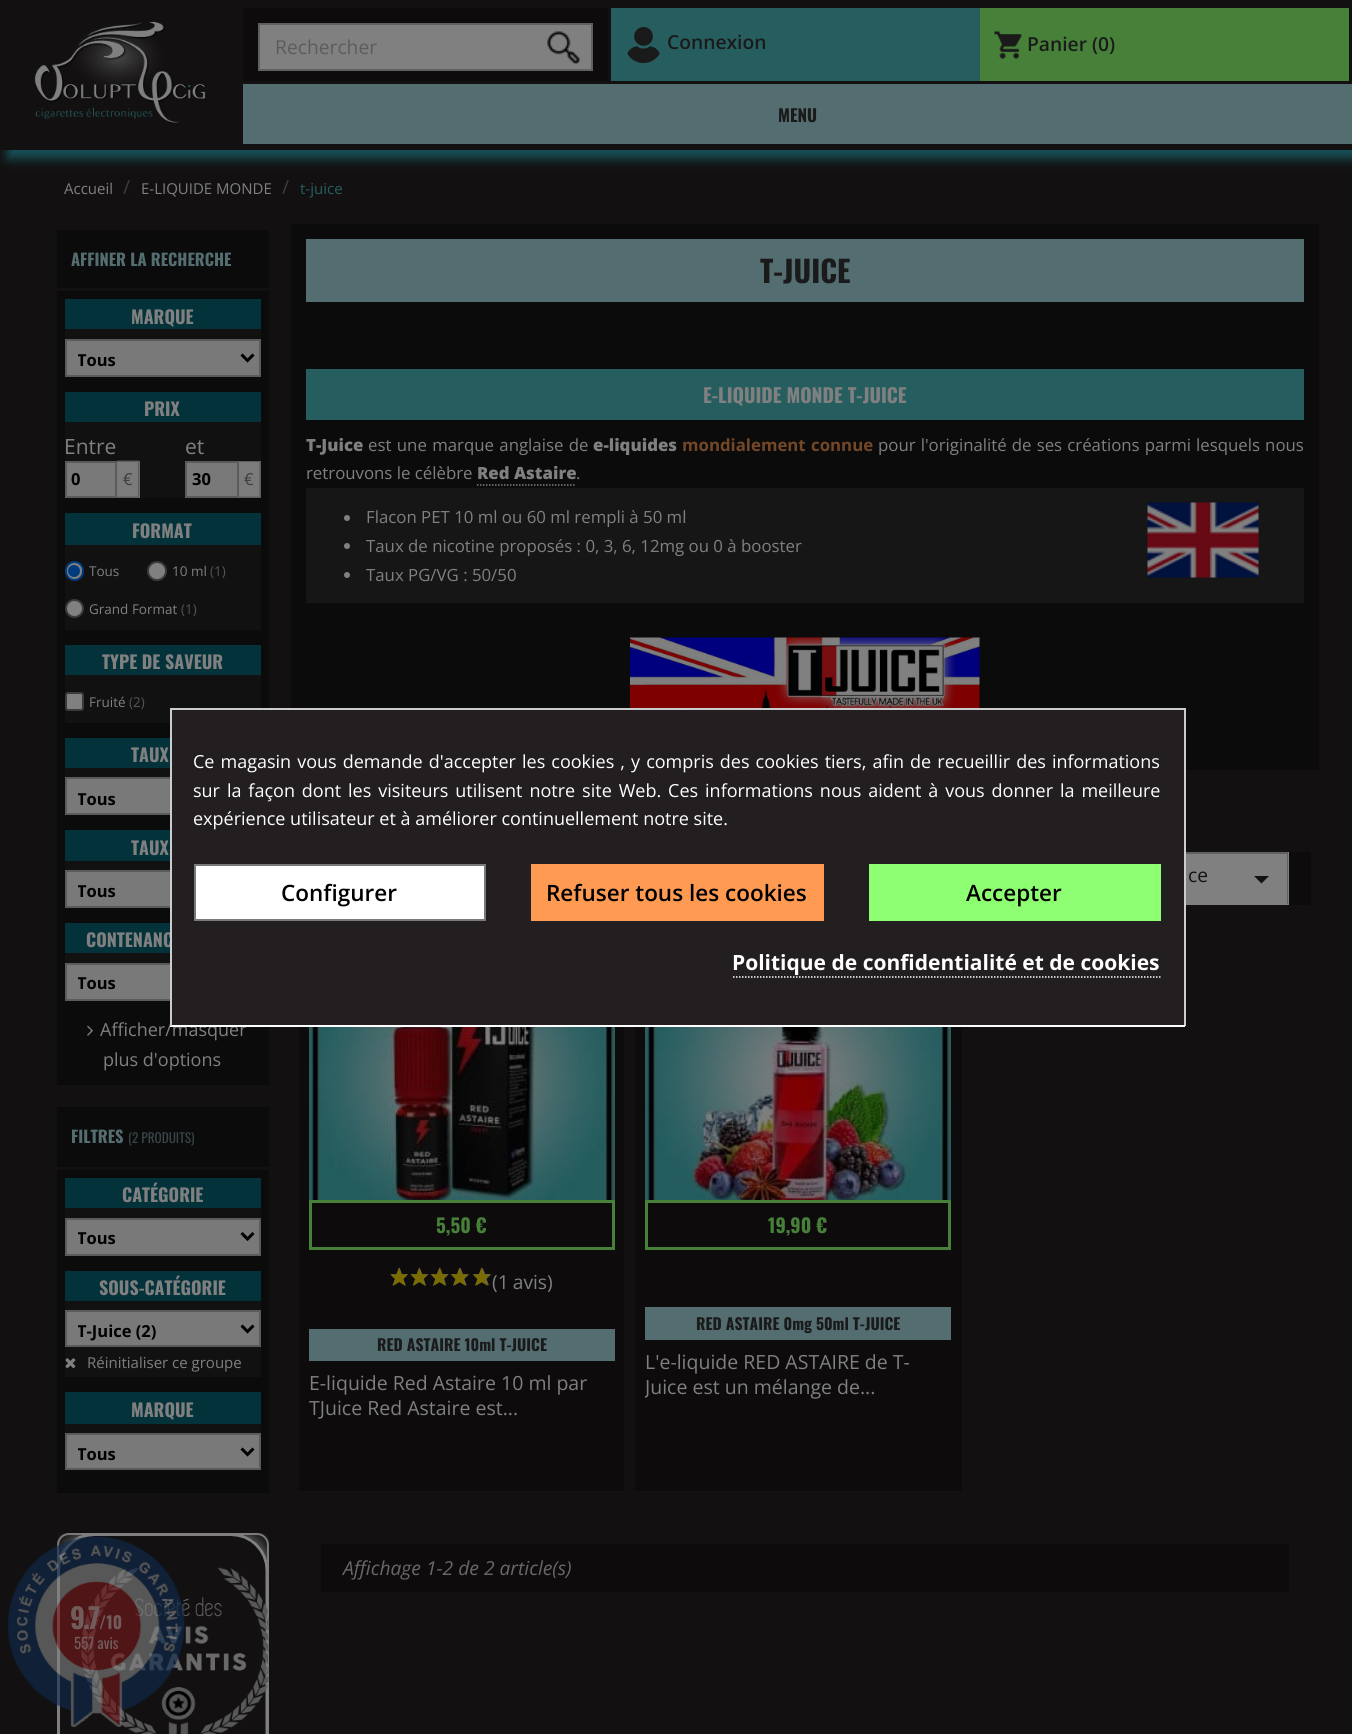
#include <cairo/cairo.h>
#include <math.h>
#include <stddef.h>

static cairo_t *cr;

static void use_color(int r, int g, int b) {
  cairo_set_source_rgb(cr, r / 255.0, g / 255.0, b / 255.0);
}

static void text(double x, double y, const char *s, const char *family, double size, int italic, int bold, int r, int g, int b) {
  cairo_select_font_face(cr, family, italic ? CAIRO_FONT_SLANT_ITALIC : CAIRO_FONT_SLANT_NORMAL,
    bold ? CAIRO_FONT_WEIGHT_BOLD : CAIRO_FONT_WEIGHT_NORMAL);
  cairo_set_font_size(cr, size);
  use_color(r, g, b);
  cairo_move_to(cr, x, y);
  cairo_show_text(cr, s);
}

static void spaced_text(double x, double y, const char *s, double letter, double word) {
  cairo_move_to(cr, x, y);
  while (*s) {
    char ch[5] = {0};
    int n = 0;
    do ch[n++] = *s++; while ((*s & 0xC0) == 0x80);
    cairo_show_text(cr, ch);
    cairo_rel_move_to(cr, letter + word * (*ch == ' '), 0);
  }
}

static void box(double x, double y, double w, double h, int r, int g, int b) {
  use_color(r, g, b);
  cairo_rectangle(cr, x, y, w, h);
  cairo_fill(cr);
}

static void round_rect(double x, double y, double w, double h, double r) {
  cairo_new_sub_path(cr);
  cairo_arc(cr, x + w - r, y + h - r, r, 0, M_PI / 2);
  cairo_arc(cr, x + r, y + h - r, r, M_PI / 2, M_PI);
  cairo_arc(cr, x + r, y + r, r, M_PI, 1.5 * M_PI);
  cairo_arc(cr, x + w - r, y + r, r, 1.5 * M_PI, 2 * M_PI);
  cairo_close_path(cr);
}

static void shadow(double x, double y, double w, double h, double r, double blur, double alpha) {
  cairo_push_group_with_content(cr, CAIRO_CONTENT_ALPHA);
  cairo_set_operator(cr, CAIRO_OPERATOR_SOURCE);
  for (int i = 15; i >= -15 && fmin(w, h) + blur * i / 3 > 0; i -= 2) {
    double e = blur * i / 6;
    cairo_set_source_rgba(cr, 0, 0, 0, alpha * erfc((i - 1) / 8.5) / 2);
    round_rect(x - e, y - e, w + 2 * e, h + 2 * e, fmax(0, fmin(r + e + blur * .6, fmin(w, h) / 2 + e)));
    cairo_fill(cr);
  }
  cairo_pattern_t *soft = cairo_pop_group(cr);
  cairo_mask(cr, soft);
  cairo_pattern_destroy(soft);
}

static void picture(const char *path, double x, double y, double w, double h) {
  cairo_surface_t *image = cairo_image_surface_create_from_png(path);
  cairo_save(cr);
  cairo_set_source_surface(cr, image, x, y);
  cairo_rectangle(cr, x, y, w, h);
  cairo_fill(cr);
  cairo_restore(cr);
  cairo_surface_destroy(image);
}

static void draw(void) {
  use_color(18, 16, 16);
  cairo_paint(cr);
  cairo_save(cr);
  cairo_rectangle(cr, 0, 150, 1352, 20);
  cairo_clip(cr);
  use_color(24, 104, 115);
  shadow(8, 8, 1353, 150, 0, 6, 0.8);
  cairo_restore(cr);
  picture("img_01.png", 34, 21, 172, 103);
  box(243, 8, 365, 73, 13, 11, 11);
  use_color(128, 128, 128);
  cairo_rectangle(cr, 259, 24, 333, 46);
  cairo_fill_preserve(cr);
  use_color(96, 96, 96);
  cairo_stroke(cr);
  picture("img_02.png", 547, 31, 34, 34);
  box(611, 8, 369, 73, 38, 94, 96);
  picture("img_03.png", 627, 27, 33, 36);
  box(980, 8, 369, 73, 71, 128, 57);
  picture("img_04.png", 994, 31, 28, 28);
  box(243, 84, 1109, 60, 84, 109, 112);
  box(57, 230, 212, 855, 12, 11, 11);
  box(57, 288, 212, 3, 18, 16, 16);
  box(65, 329, 196, 10, 18, 17, 17);
  box(65, 299, 196, 30, 4, 50, 59);
  use_color(121, 121, 121);
  cairo_rectangle(cr, 66, 340, 194, 36);
  cairo_fill_preserve(cr);
  use_color(91, 91, 91);
  cairo_stroke(cr);
  cairo_new_path(cr);
  cairo_move_to(cr, 241.5, 354.5);
  cairo_line_to(cr, 247.5, 360.5);
  cairo_line_to(cr, 253.5, 354.5);
  use_color(0, 0, 0);
  cairo_set_line_width(cr, 3);
  cairo_stroke(cr);
  box(65, 422, 196, 76, 18, 17, 17);
  box(65, 392, 196, 30, 4, 50, 59);
  use_color(121, 121, 121);
  cairo_rectangle(cr, 66, 462, 50, 35);
  cairo_fill_preserve(cr);
  use_color(91, 91, 91);
  cairo_set_line_width(cr, 2);
  cairo_stroke(cr);
  box(117, 461, 23, 37, 123, 123, 123);
  use_color(93, 93, 93);
  cairo_new_path(cr);
  cairo_move_to(cr, 117, 460.5);
  cairo_line_to(cr, 139.5, 460.5);
  cairo_line_to(cr, 138, 462);
  cairo_line_to(cr, 117, 462);
  cairo_close_path(cr);
  cairo_fill(cr);
  cairo_set_source_rgba(cr, 0, 0, 0, 0.25);
  cairo_new_path(cr);
  cairo_move_to(cr, 139.5, 460.5);
  cairo_line_to(cr, 139.5, 498);
  cairo_line_to(cr, 138, 496.5);
  cairo_line_to(cr, 138, 462);
  cairo_close_path(cr);
  cairo_fill(cr);
  cairo_new_path(cr);
  cairo_move_to(cr, 139.5, 498);
  cairo_line_to(cr, 117, 498);
  cairo_line_to(cr, 117, 496.5);
  cairo_line_to(cr, 138, 496.5);
  cairo_close_path(cr);
  cairo_fill(cr);
  box(239, 461, 22, 37, 123, 123, 123);
  cairo_set_source_rgba(cr, 0, 0, 0, 0.25);
  cairo_new_path(cr);
  cairo_move_to(cr, 238.5, 460.5);
  cairo_line_to(cr, 261, 460.5);
  cairo_line_to(cr, 259.5, 462);
  cairo_line_to(cr, 238.5, 462);
  cairo_close_path(cr);
  cairo_fill(cr);
  cairo_new_path(cr);
  cairo_move_to(cr, 261, 460.5);
  cairo_line_to(cr, 261, 498);
  cairo_line_to(cr, 259.5, 496.5);
  cairo_line_to(cr, 259.5, 462);
  cairo_close_path(cr);
  cairo_fill(cr);
  cairo_new_path(cr);
  cairo_move_to(cr, 261, 498);
  cairo_line_to(cr, 238.5, 498);
  cairo_line_to(cr, 238.5, 496.5);
  cairo_line_to(cr, 259.5, 496.5);
  cairo_close_path(cr);
  cairo_fill(cr);
  use_color(121, 121, 121);
  cairo_rectangle(cr, 186, 462, 52, 35);
  cairo_fill_preserve(cr);
  use_color(91, 91, 91);
  cairo_stroke(cr);
  box(65, 545, 196, 85, 18, 17, 17);
  box(65, 513, 196, 32, 4, 50, 59);
  use_color(128, 128, 128);
  round_rect(66, 562, 17, 18, 8.5);
  cairo_fill_preserve(cr);
  use_color(0, 59, 128);
  cairo_stroke(cr);
  cairo_arc(cr, 74, 571, 6, 0, 2 * M_PI);
  cairo_fill(cr);
  use_color(128, 128, 128);
  cairo_arc(cr, 157, 571, 9, 0, 2 * M_PI);
  cairo_fill_preserve(cr);
  use_color(59, 59, 59);
  cairo_stroke(cr);
  use_color(128, 128, 128);
  cairo_arc(cr, 74.5, 608.5, 8.5, 0, 2 * M_PI);
  cairo_fill_preserve(cr);
  use_color(59, 59, 59);
  cairo_stroke(cr);
  box(65, 675, 196, 48, 18, 17, 17);
  box(65, 645, 196, 30, 4, 50, 59);
  use_color(128, 128, 128);
  round_rect(66, 693, 17, 17, 2);
  cairo_fill_preserve(cr);
  use_color(59, 59, 59);
  cairo_stroke(cr);
  box(65, 768, 105, 9, 18, 17, 17);
  box(65, 738, 105, 30, 4, 50, 59);
  box(67, 779, 103, 34, 121, 121, 121);
  cairo_rectangle(cr, 66, 778, 194, 36);
  use_color(91, 91, 91);
  cairo_stroke(cr);
  box(65, 861, 105, 9, 18, 17, 17);
  box(65, 830, 105, 31, 4, 50, 59);
  box(67, 872, 103, 34, 121, 121, 121);
  cairo_rectangle(cr, 66, 871, 194, 36);
  use_color(91, 91, 91);
  cairo_stroke(cr);
  box(65, 953, 105, 10, 18, 17, 17);
  box(65, 923, 105, 30, 4, 50, 59);
  box(67, 965, 103, 34, 121, 121, 121);
  cairo_rectangle(cr, 66, 964, 194, 36);
  use_color(91, 91, 91);
  cairo_stroke(cr);
  picture("img_05.png", 87, 1025, 6, 11);
  box(57, 1107, 212, 386, 12, 11, 11);
  box(57, 1167, 212, 3, 18, 16, 16);
  box(65, 1208, 196, 10, 18, 17, 17);
  box(65, 1178, 196, 30, 4, 50, 59);
  use_color(121, 121, 121);
  cairo_rectangle(cr, 66, 1219, 194, 36);
  cairo_fill_preserve(cr);
  use_color(91, 91, 91);
  cairo_stroke(cr);
  cairo_new_path(cr);
  cairo_move_to(cr, 241.5, 1233);
  cairo_line_to(cr, 247.5, 1239);
  cairo_line_to(cr, 253.5, 1233);
  use_color(0, 0, 0);
  cairo_set_line_width(cr, 3);
  cairo_stroke(cr);
  box(65, 1301, 196, 76, 18, 17, 17);
  box(65, 1271, 196, 30, 4, 50, 59);
  use_color(121, 121, 121);
  cairo_rectangle(cr, 66, 1311, 194, 35);
  cairo_fill_preserve(cr);
  use_color(91, 91, 91);
  cairo_set_line_width(cr, 2);
  cairo_stroke(cr);
  cairo_new_path(cr);
  cairo_move_to(cr, 241.5, 1325.5);
  cairo_line_to(cr, 247.5, 1331.5);
  cairo_line_to(cr, 253.5, 1325.5);
  use_color(0, 0, 0);
  cairo_set_line_width(cr, 3);
  cairo_stroke(cr);
  picture("img_06.png", 65, 1358, 11, 11);
  box(65, 1424, 196, 9, 18, 17, 17);
  box(65, 1392, 196, 32, 4, 50, 59);
  use_color(121, 121, 121);
  cairo_rectangle(cr, 66, 1434, 194, 35);
  cairo_fill_preserve(cr);
  use_color(91, 91, 91);
  cairo_set_line_width(cr, 2);
  cairo_stroke(cr);
  cairo_new_path(cr);
  cairo_move_to(cr, 241.5, 1448.5);
  cairo_line_to(cr, 247.5, 1454.5);
  cairo_line_to(cr, 253.5, 1448.5);
  use_color(0, 0, 0);
  cairo_set_line_width(cr, 3);
  cairo_stroke(cr);
  round_rect(58, 1534, 210, 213, 11);
  use_color(121, 121, 121);
  cairo_set_line_width(cr, 2);
  cairo_stroke(cr);
  picture("img_07.png", 57, 1533, 212, 201);
  box(291, 224, 1028, 546, 12, 11, 11);
  box(306, 239, 998, 63, 84, 109, 112);
  box(306, 369, 998, 51, 38, 94, 96);
  cairo_new_path(cr);
  cairo_move_to(cr, 477, 485);
  cairo_line_to(cr, 576, 485);
  use_color(128, 128, 128);
  cairo_set_line_width(cr, 1.5);
  cairo_set_dash(cr, (double[]){1.5, 1.5}, 2, 0);
  cairo_stroke(cr);
  box(306, 488, 998, 115, 23, 22, 22);
  use_color(128, 128, 128);
  cairo_arc(cr, 347, 518, 3, 0, 2 * M_PI);
  cairo_fill(cr);
  picture("img_08.png", 1147, 502, 112, 76);
  cairo_arc(cr, 347, 546, 3, 0, 2 * M_PI);
  cairo_fill(cr);
  cairo_arc(cr, 347, 575, 3, 0, 2 * M_PI);
  cairo_fill(cr);
  picture("img_09.png", 630, 637, 350, 71);
  box(1289, 852, 22, 53, 13, 11, 11);
  box(1186, 852, 103, 53, 128, 128, 128);
  use_color(96, 96, 96);
  cairo_new_path(cr);
  cairo_move_to(cr, 1102, 852);
  cairo_line_to(cr, 1288, 852);
  cairo_line_to(cr, 1287, 854);
  cairo_line_to(cr, 1104, 854);
  cairo_close_path(cr);
  cairo_fill(cr);
  cairo_set_source_rgba(cr, 0, 0, 0, 0.25);
  cairo_new_path(cr);
  cairo_move_to(cr, 1288, 852);
  cairo_line_to(cr, 1288, 904);
  cairo_line_to(cr, 1287, 904);
  cairo_line_to(cr, 1287, 854);
  cairo_close_path(cr);
  cairo_fill(cr);
  use_color(18, 18, 18);
  cairo_new_path(cr);
  cairo_move_to(cr, 1254, 876);
  cairo_line_to(cr, 1269, 876);
  cairo_line_to(cr, 1261.5, 883.5);
  cairo_close_path(cr);
  cairo_fill(cr);
  box(299, 1027, 325, 464, 13, 11, 11);
  picture("img_10.png", 309, 1027, 306, 173);
  cairo_rectangle(cr, 310.5, 1201.5, 303, 47);
  use_color(71, 128, 57);
  cairo_set_line_width(cr, 3);
  cairo_set_dash(cr, NULL, 0, 0);
  cairo_stroke(cr);
  picture("img_11.png", 390, 1267, 102, 19);
  picture("img_12.png", 390, 1267, 100, 19);
  box(309, 1329, 306, 32, 84, 109, 112);
  box(635, 1027, 327, 464, 13, 11, 11);
  picture("img_13.png", 645, 1027, 306, 173);
  cairo_rectangle(cr, 646.5, 1201.5, 303, 47);
  use_color(71, 128, 57);
  cairo_stroke(cr);
  box(645, 1307, 306, 33, 84, 109, 112);
  box(321, 1544, 968, 48, 13, 11, 11);
  box(170, 708, 1015, 2, 204, 204, 204);
  box(1184, 708, 2, 318, 204, 204, 204);
  picture("img_14.png", 7, 1536, 178, 191);
  text(275, 54, "Rechercher", "Open Sans", 19.25, 0, 0, 92, 92, 92);
  text(667, 49, "Connexion", "Open Sans SemiBold", 19.25, 0, 0, 26, 26, 26);
  text(1027, 51, "Panier (0)", "Open Sans SemiBold", 19.25, 0, 0, 26, 26, 26);
  text(778, 122, "MENU", "Oswald", 17, 0, 1, 26, 26, 26);
  text(64, 194, "Accueil", "Open Sans", 15, 0, 0, 128, 128, 128);
  text(123, 194, "/", "Open Sans", 19.25, 0, 0, 61, 61, 61);
  text(141, 194, "E-LIQUIDE MONDE", "Open Sans", 15, 0, 0, 128, 128, 128);
  text(282, 194, "/", "Open Sans", 19.25, 0, 0, 61, 61, 61);
  text(300, 194, "t-juice", "Open Sans", 15, 0, 0, 38, 94, 96);
  text(71, 266, "AFFINER LA RECHERCHE", "Oswald", 16.5, 0, 1, 84, 109, 112);
  text(131, 324, "MARQUE", "Oswald", 18, 0, 1, 128, 128, 128);
  cairo_save(cr);
  cairo_rectangle(cr, 78, 347, 152, 25);
  cairo_clip(cr);
  text(77, 366, "Tous", "Open Sans", 16.5, 0, 1, 0, 0, 0);
  cairo_restore(cr);
  text(144, 416, "PRIX", "Oswald", 18, 0, 1, 128, 128, 128);
  text(64, 454, "Entre", "Open Sans", 21, 0, 0, 128, 128, 128);
  text(71, 485, "0", "Open Sans", 16.5, 0, 1, 0, 0, 0);
  text(123, 485, "€", "Open Sans", 16.5, 0, 0, 61, 61, 61);
  text(185, 454, "et", "Open Sans", 21, 0, 0, 128, 128, 128);
  text(192, 485, "30", "Open Sans", 16.5, 0, 1, 0, 0, 0);
  text(244, 485, "€", "Open Sans", 16.5, 0, 0, 61, 61, 61);
  text(132, 538, "FORMAT", "Oswald", 18, 0, 1, 128, 128, 128);
  text(89, 576, "Tous", "Open Sans", 13.5, 0, 0, 128, 128, 128);
  text(172, 576, "10 ml", "Open Sans", 13.5, 0, 0, 128, 128, 128);
  text(210, 576, "(1)", "Open Sans", 13.5, 0, 0, 84, 83, 83);
  text(89, 614, "Grand Format", "Open Sans", 13.5, 0, 0, 128, 128, 128);
  text(181, 614, "(1)", "Open Sans", 13.5, 0, 0, 84, 83, 83);
  text(102, 669, "TYPE DE SAVEUR", "Oswald", 18, 0, 1, 128, 128, 128);
  text(89, 707, "Fruité", "Open Sans", 13.5, 0, 0, 128, 128, 128);
  text(129, 707, "(2)", "Open Sans", 13.5, 0, 0, 84, 83, 83);
  text(131, 762, "TAUX", "Oswald", 18, 0, 1, 128, 128, 128);
  cairo_save(cr);
  cairo_rectangle(cr, 78, 785, 152, 25);
  cairo_clip(cr);
  text(77, 805, "Tous", "Open Sans", 16.5, 0, 1, 0, 0, 0);
  cairo_restore(cr);
  text(131, 855, "TAUX", "Oswald", 18, 0, 1, 128, 128, 128);
  cairo_save(cr);
  cairo_rectangle(cr, 78, 878, 152, 25);
  cairo_clip(cr);
  text(77, 897, "Tous", "Open Sans", 16.5, 0, 1, 0, 0, 0);
  cairo_restore(cr);
  text(86, 947, "CONTENANC", "Oswald", 18, 0, 1, 128, 128, 128);
  cairo_save(cr);
  cairo_rectangle(cr, 78, 971, 152, 25);
  cairo_clip(cr);
  text(77, 989, "Tous", "Open Sans", 16.5, 0, 1, 0, 0, 0);
  cairo_restore(cr);
  text(100, 1036, "Afficher/masquer", "Open Sans", 18, 0, 0, 128, 128, 128);
  text(103, 1066, "plus d'options", "Open Sans", 18, 0, 0, 128, 128, 128);
  text(71, 1143, "FILTRES", "Oswald", 16.5, 0, 1, 84, 109, 112);
  text(128, 1143, "(2 PRODUITS)", "Oswald", 13.25, 0, 0, 55, 70, 72);
  text(122, 1202, "CATÉGORIE", "Oswald", 18, 0, 1, 128, 128, 128);
  cairo_save(cr);
  cairo_rectangle(cr, 78, 1226, 152, 25);
  cairo_clip(cr);
  text(77, 1244, "Tous", "Open Sans", 16.5, 0, 1, 0, 0, 0);
  cairo_restore(cr);
  text(99, 1295, "SOUS-CATÉGORIE", "Oswald", 18, 0, 1, 128, 128, 128);
  cairo_save(cr);
  cairo_rectangle(cr, 78, 1317, 152, 26);
  cairo_clip(cr);
  text(77, 1337, "T-Juice (2)", "Open Sans", 16.5, 0, 1, 0, 0, 0);
  cairo_restore(cr);
  text(87, 1368, "Réinitialiser ce groupe", "Open Sans", 15, 0, 0, 128, 128, 128);
  text(131, 1417, "MARQUE", "Oswald", 18, 0, 1, 128, 128, 128);
  cairo_save(cr);
  cairo_rectangle(cr, 78, 1440, 152, 26);
  cairo_clip(cr);
  text(77, 1460, "Tous", "Open Sans", 16.5, 0, 1, 0, 0, 0);
  cairo_restore(cr);
  text(760, 283, "T-JUICE", "Oswald", 30, 0, 1, 26, 26, 26);
  text(703, 403, "E-LIQUIDE MONDE T-JUICE", "Oswald", 19.5, 0, 1, 128, 128, 128);
  text(306, 451, "T-Juice", "Open Sans ExtraBold", 16.8, 0, 0, 128, 128, 128);
  cairo_select_font_face(cr, "Open Sans", CAIRO_FONT_SLANT_NORMAL, CAIRO_FONT_WEIGHT_NORMAL);
  spaced_text(368, 451, "est une marque anglaise de", 0, 1);
  text(593, 451, "e-liquides", "Open Sans ExtraBold", 16.8, 0, 0, 128, 128, 128);
  cairo_select_font_face(cr, "Open Sans", CAIRO_FONT_SLANT_NORMAL, CAIRO_FONT_WEIGHT_BOLD);
  use_color(116, 71, 38);
  spaced_text(682, 451, "mondialement connue", 0, 1);
  cairo_select_font_face(cr, "Open Sans", CAIRO_FONT_SLANT_NORMAL, CAIRO_FONT_WEIGHT_NORMAL);
  use_color(128, 128, 128);
  spaced_text(878, 451, "pour l'originalité de ses créations parmi lesquels nous", 0, 0.75);
  text(306, 479, "retrouvons le célèbre", "Open Sans", 16.8, 0, 0, 128, 128, 128);
  text(477, 479, "Red Astaire", "Open Sans ExtraBold", 16.8, 0, 0, 128, 128, 128);
  text(576, 479, ".", "Open Sans", 16.8, 0, 0, 128, 128, 128);
  text(366, 523, "Flacon PET 10 ml ou 60 ml rempli à 50 ml", "Open Sans", 16.8, 0, 0, 128, 128, 128);
  text(366, 552, "Taux de nicotine proposés : 0, 3, 6, 12mg ou 0 à booster", "Open Sans", 16.8, 0, 0, 128, 128, 128);
  text(366, 581, "Taux PG/VG : 50/50", "Open Sans", 16.8, 0, 0, 128, 128, 128);
  text(1188, 882, "ce", "Open Sans", 19.25, 0, 0, 18, 18, 18);
  text(436, 1233, "5,50 €", "Oswald", 19.25, 0, 1, 71, 128, 57);
  cairo_select_font_face(cr, "Open Sans", CAIRO_FONT_SLANT_NORMAL, CAIRO_FONT_WEIGHT_NORMAL);
  use_color(128, 128, 128);
  spaced_text(492, 1289, "(1 avis)", 0, -1);
  text(377, 1351, "RED ASTAIRE 10ml T-JUICE", "Oswald", 15.75, 0, 1, 26, 26, 26);
  text(309, 1390, "E-liquide Red Astaire 10 ml par", "Open Sans", 19.5, 0, 0, 128, 128, 128);
  text(309, 1415, "TJuice Red Astaire est...", "Open Sans", 19.5, 0, 0, 128, 128, 128);
  text(768, 1233, "19,90 €", "Oswald", 19.25, 0, 1, 71, 128, 57);
  text(696, 1330, "RED ASTAIRE 0mg 50ml T-JUICE", "Oswald", 15.75, 0, 1, 26, 26, 26);
  text(645, 1369, "L'e-liquide RED ASTAIRE de T-", "Open Sans", 19.5, 0, 0, 128, 128, 128);
  cairo_save(cr);
  cairo_rectangle(cr, 645, 924, 306, 533);
  cairo_clip(cr);
  text(645, 1394, "Juice est un mélange de...", "Open Sans", 19.5, 0, 0, 128, 128, 128);
  cairo_restore(cr);
  text(343, 1575, "Affichage 1-2 de 2 article(s)", "Open Sans", 19.25, 1, 0, 105, 104, 104);
  box(172, 710, 1012, 315, 35, 31, 32);
  box(170, 1025, 1015, 2, 255, 255, 255);
  box(170, 708, 2, 318, 204, 204, 204);
  cairo_select_font_face(cr, "Open Sans", CAIRO_FONT_SLANT_NORMAL, CAIRO_FONT_WEIGHT_NORMAL);
  cairo_set_font_size(cr, 18);
  use_color(255, 255, 255);
  spaced_text(193, 768, "Ce magasin vous demande d'accepter les cookies , y compris des cookies tiers, afin de recueillir des informations", 0, 1.4);
  spaced_text(193, 797, "sur la façon dont les visiteurs utilisent notre site Web. Ces informations nous aident à vous donner la meilleure", 0, 2.25);
  text(193, 825, "expérience utilisateur et à améliorer continuellement notre site.", "Open Sans", 18, 0, 0, 255, 255, 255);
  cairo_rectangle(cr, 195, 865, 290, 55);
  cairo_fill_preserve(cr);
  use_color(122, 122, 122);
  cairo_set_line_width(cr, 2);
  cairo_stroke(cr);
  text(281, 901, "Configurer", "Open Sans SemiBold", 22.5, 0, 0, 0, 0, 0);
  box(531, 864, 293, 57, 255, 154, 82);
  text(546, 901, "Refuser tous les cookies", "Open Sans SemiBold", 22.5, 0, 0, 0, 0, 0);
  box(869, 864, 292, 57, 142, 255, 114);
  text(966, 901, "Accepter", "Open Sans SemiBold", 22.5, 0, 0, 0, 0, 0);
  cairo_new_path(cr);
  cairo_move_to(cr, 733, 977);
  cairo_line_to(cr, 1160.5, 977);
  use_color(255, 255, 255);
  cairo_set_line_width(cr, 1.5);
  cairo_set_dash(cr, (double[]){1.5, 1.5}, 2, 0);
  cairo_stroke(cr);
  text(732, 970, "Politique de confidentialité et de cookies", "Open Sans", 21, 0, 1, 255, 255, 255);
  cairo_select_font_face(cr, "Oswald", CAIRO_FONT_SLANT_NORMAL, CAIRO_FONT_WEIGHT_BOLD);
  cairo_set_font_size(cr, 28);
  use_color(113, 92, 92);
  spaced_text(70, 1629, "9.7", -2, 0);
  text(99, 1629, "/10", "Oswald", 17, 0, 1, 113, 92, 92);
  text(74, 1649, "557 avis", "Oswald", 15, 0, 0, 113, 92, 92);
}

int main(void) {
  cairo_surface_t *surface = cairo_image_surface_create(CAIRO_FORMAT_RGB24, 1352, 1734);
  cr = cairo_create(surface);
  cairo_font_options_t *options = cairo_font_options_create();
  cairo_font_options_set_hint_metrics(options, CAIRO_HINT_METRICS_OFF);
  cairo_font_options_set_hint_style(options, CAIRO_HINT_STYLE_NONE);
  cairo_set_font_options(cr, options);
  cairo_set_miter_limit(cr, 4);
  draw();
  cairo_surface_write_to_png(surface, "out.png");
  cairo_font_options_destroy(options);
  cairo_destroy(cr);
  cairo_surface_destroy(surface);
  return 0;
}
